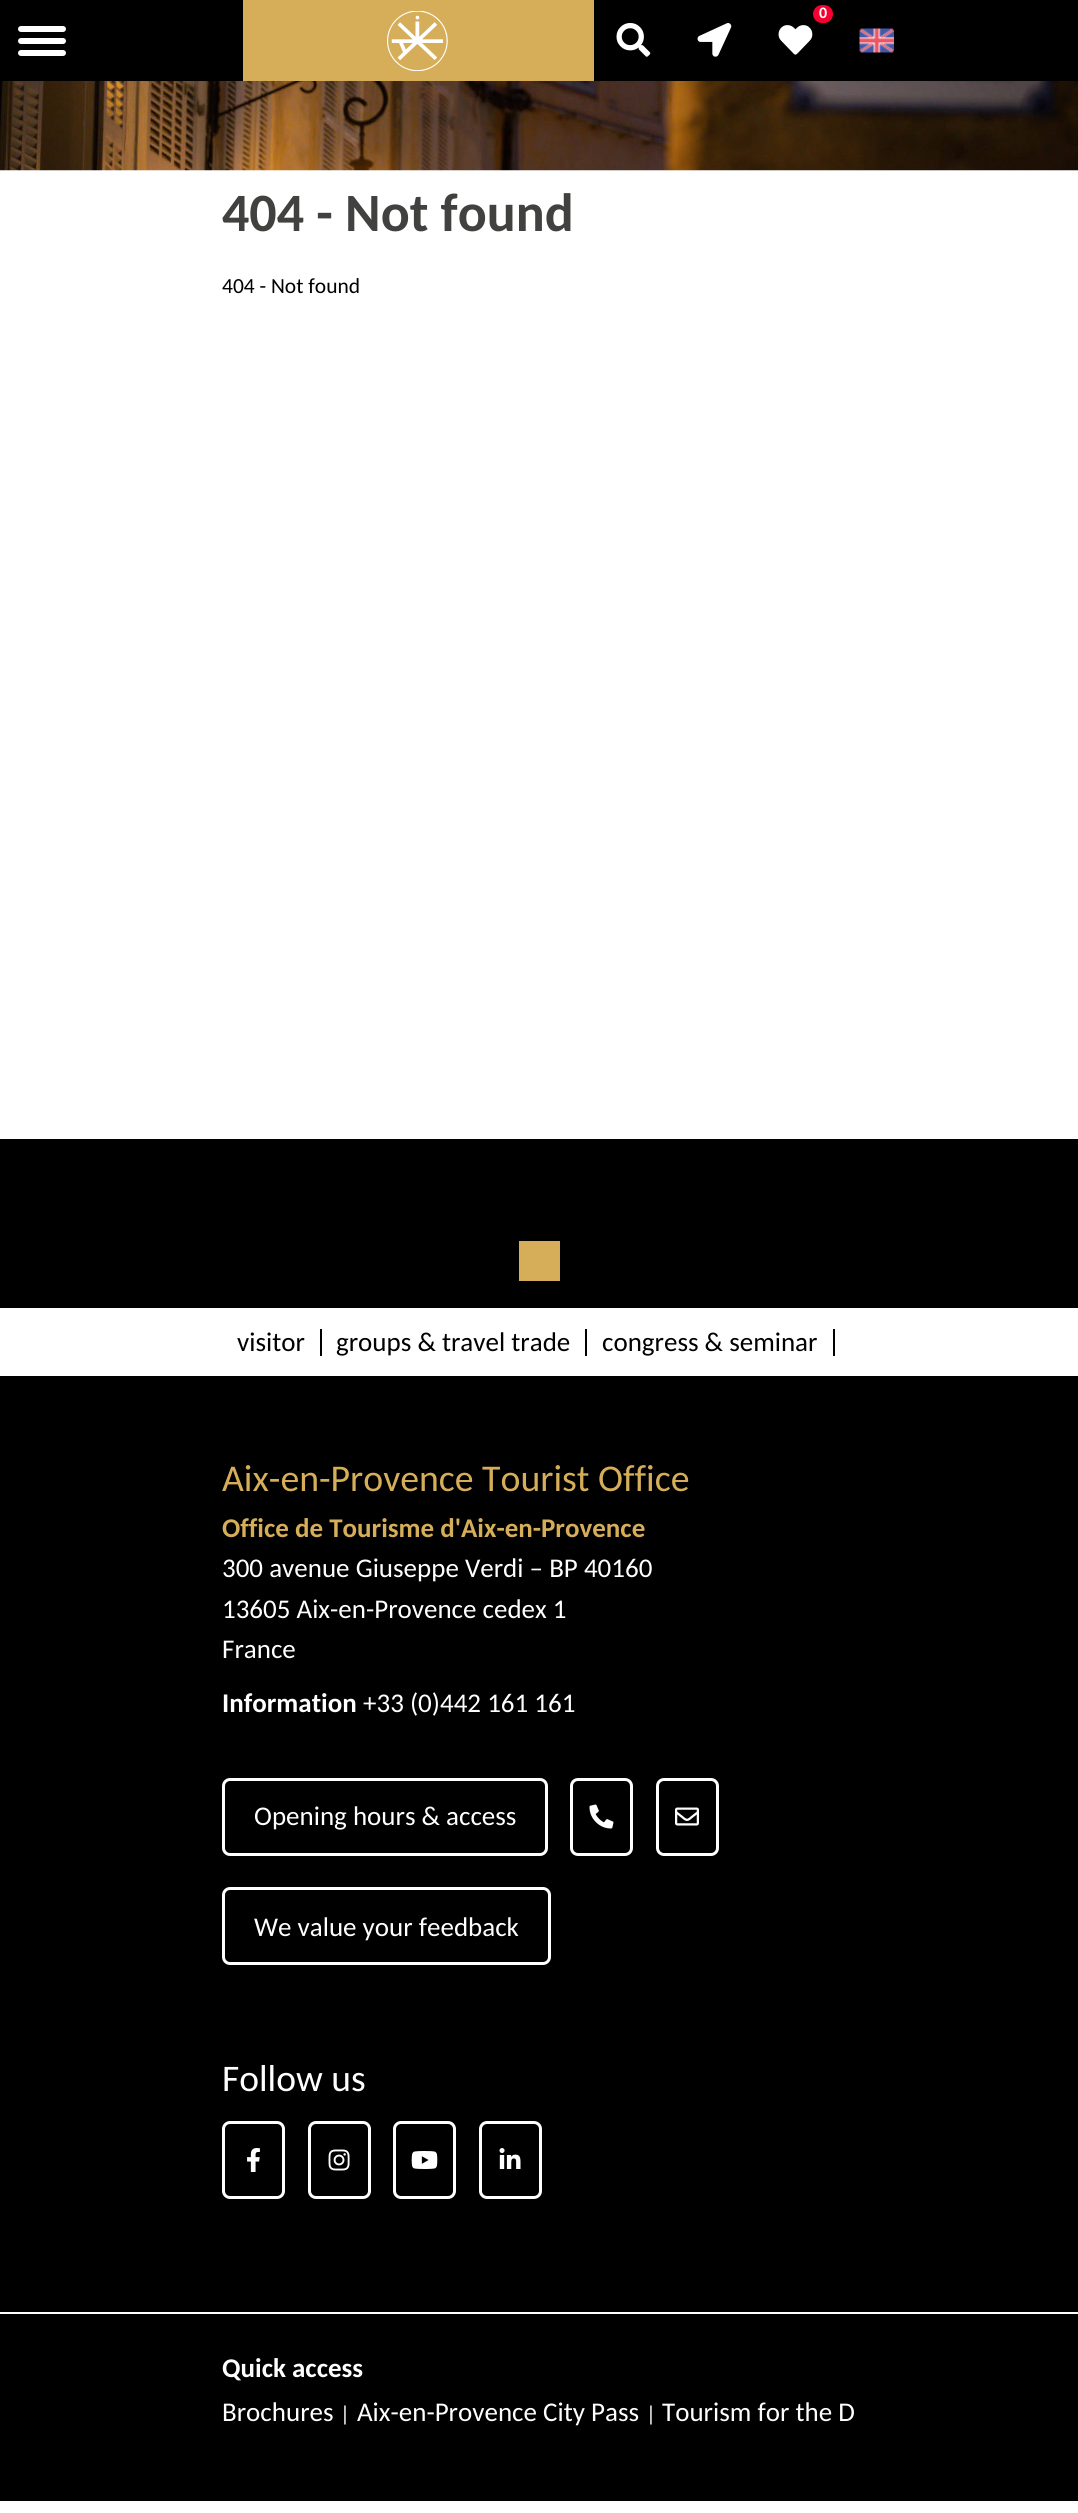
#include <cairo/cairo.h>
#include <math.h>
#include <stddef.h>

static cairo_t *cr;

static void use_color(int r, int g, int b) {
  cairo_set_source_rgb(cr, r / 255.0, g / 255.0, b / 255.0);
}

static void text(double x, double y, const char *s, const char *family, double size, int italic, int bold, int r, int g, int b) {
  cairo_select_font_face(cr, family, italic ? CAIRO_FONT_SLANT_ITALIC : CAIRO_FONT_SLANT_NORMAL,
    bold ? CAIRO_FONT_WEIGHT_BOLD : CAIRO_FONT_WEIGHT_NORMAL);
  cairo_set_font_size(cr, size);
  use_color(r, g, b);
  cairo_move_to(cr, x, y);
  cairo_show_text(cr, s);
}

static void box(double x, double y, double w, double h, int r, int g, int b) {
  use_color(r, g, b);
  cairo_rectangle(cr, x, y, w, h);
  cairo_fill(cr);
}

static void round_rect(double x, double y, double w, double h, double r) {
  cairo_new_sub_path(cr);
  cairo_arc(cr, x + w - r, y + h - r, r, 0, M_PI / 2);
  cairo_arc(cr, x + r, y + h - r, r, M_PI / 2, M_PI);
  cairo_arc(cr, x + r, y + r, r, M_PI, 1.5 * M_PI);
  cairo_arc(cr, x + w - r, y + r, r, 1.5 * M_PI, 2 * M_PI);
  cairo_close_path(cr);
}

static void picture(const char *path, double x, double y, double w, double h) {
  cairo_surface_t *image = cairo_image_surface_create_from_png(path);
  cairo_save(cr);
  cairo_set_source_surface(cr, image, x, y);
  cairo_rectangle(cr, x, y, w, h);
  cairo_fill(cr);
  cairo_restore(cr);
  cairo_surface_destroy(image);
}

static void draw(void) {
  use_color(255, 255, 255);
  cairo_paint(cr);
  box(0, 0, 1078, 81, 0, 0, 0);
  box(243, 0, 351, 81, 214, 174, 89);
  picture("img_01.png", 387, 11, 61, 60);
  use_color(247, 0, 47);
  round_rect(813, 5, 20, 18, 9);
  cairo_fill(cr);
  picture("img_02.png", 778, 25, 35, 30);
  picture("img_03.png", 616, 23, 35, 34);
  picture("img_04.png", 697, 23, 35, 34);
  picture("img_05.png", 859, 28, 35, 25);
  use_color(255, 255, 255);
  round_rect(18, 26, 48, 6, 3);
  cairo_fill(cr);
  round_rect(18, 38, 48, 6, 3);
  cairo_fill(cr);
  round_rect(18, 50, 48, 6, 3);
  cairo_fill(cr);
  picture("img_06.png", 0, 81, 1078, 90);
  box(0, 1139, 1078, 169, 0, 0, 0);
  box(519, 1241, 41, 40, 214, 174, 89);
  box(320, 1329, 2, 27, 0, 0, 0);
  box(585, 1329, 2, 27, 0, 0, 0);
  box(833, 1329, 2, 27, 0, 0, 0);
  box(0, 1376, 1078, 936, 0, 0, 0);
  round_rect(223.5, 1779.5, 323, 75, 6.5);
  use_color(255, 255, 255);
  cairo_set_line_width(cr, 3);
  cairo_stroke(cr);
  round_rect(571.5, 1779.5, 60, 75, 6.5);
  cairo_stroke(cr);
  picture("img_07.png", 589, 1804, 25, 25);
  round_rect(657.5, 1779.5, 60, 75, 6.5);
  cairo_stroke(cr);
  picture("img_08.png", 675, 1807, 24, 19);
  round_rect(223.5, 1888.5, 326, 75, 6.5);
  cairo_stroke(cr);
  round_rect(223.5, 2122.5, 60, 75, 6.5);
  cairo_stroke(cr);
  picture("img_09.png", 247, 2148, 13, 24);
  round_rect(309.5, 2122.5, 60, 75, 6.5);
  cairo_stroke(cr);
  picture("img_10.png", 328, 2149, 22, 22);
  round_rect(394.5, 2122.5, 60, 75, 6.5);
  cairo_stroke(cr);
  picture("img_11.png", 411, 2151, 27, 18);
  round_rect(480.5, 2122.5, 60, 75, 6.5);
  cairo_stroke(cr);
  picture("img_12.png", 499, 2148, 22, 21);
  box(0, 2314, 1078, 187, 0, 0, 0);
  text(819, 18, "0", "Carlito", 16, 0, 1, 255, 255, 255);
  text(222, 231, "404 - Not found", "Carlito", 54, 0, 1, 65, 65, 63);
  text(222, 293, "404 - Not found", "Carlito", 21.5, 0, 0, 0, 0, 0);
  text(237, 1351, "visitor", "Carlito", 27, 0, 0, 0, 0, 0);
  text(336, 1351, "groups & travel trade", "Carlito", 27, 0, 0, 0, 0, 0);
  text(602, 1351, "congress & seminar", "Carlito", 27, 0, 0, 0, 0, 0);
  text(222, 1491, "Aix-en-Provence Tourist Office", "Carlito", 37.75, 0, 0, 214, 174, 89);
  text(222, 1537, "Office de Tourisme d'Aix-en-Provence", "Carlito", 27, 0, 1, 214, 174, 89);
  text(222, 1577, "300 avenue Giuseppe Verdi – BP 40160", "Carlito", 27, 0, 0, 255, 255, 255);
  text(222, 1618, "13605 Aix-en-Provence cedex 1", "Carlito", 27, 0, 0, 255, 255, 255);
  text(222, 1658, "France", "Carlito", 27, 0, 0, 255, 255, 255);
  text(222, 1712, "Information", "Carlito", 27, 0, 1, 255, 255, 255);
  text(363, 1712, "+33 (0)442 161 161", "Carlito", 27, 0, 0, 255, 255, 255);
  text(254, 1825, "Opening hours & access", "Carlito", 27, 0, 0, 255, 255, 255);
  text(254, 1936, "We value your feedback", "Carlito", 27, 0, 0, 255, 255, 255);
  text(222, 2091, "Follow us", "Carlito", 37.5, 0, 0, 255, 255, 255);
  text(222, 2377, "Quick access", "Carlito", 27, 0, 1, 255, 255, 255);
  text(222, 2421, "Brochures", "Carlito", 27, 0, 0, 255, 255, 255);
  text(340, 2421, "|", "Carlito", 21.5, 0, 0, 255, 255, 255);
  text(357, 2421, "Aix-en-Provence City Pass", "Carlito", 27, 0, 0, 255, 255, 255);
  text(646, 2421, "|", "Carlito", 21.5, 0, 0, 255, 255, 255);
  text(662, 2421, "Tourism for the D", "Carlito", 27, 0, 0, 255, 255, 255);
}

int main(void) {
  cairo_surface_t *surface = cairo_image_surface_create(CAIRO_FORMAT_RGB24, 1078, 2513);
  cr = cairo_create(surface);
  cairo_font_options_t *options = cairo_font_options_create();
  cairo_font_options_set_hint_metrics(options, CAIRO_HINT_METRICS_OFF);
  cairo_font_options_set_hint_style(options, CAIRO_HINT_STYLE_NONE);
  cairo_set_font_options(cr, options);
  cairo_set_miter_limit(cr, 4);
  draw();
  cairo_surface_write_to_png(surface, "out.png");
  cairo_font_options_destroy(options);
  cairo_destroy(cr);
  cairo_surface_destroy(surface);
  return 0;
}
